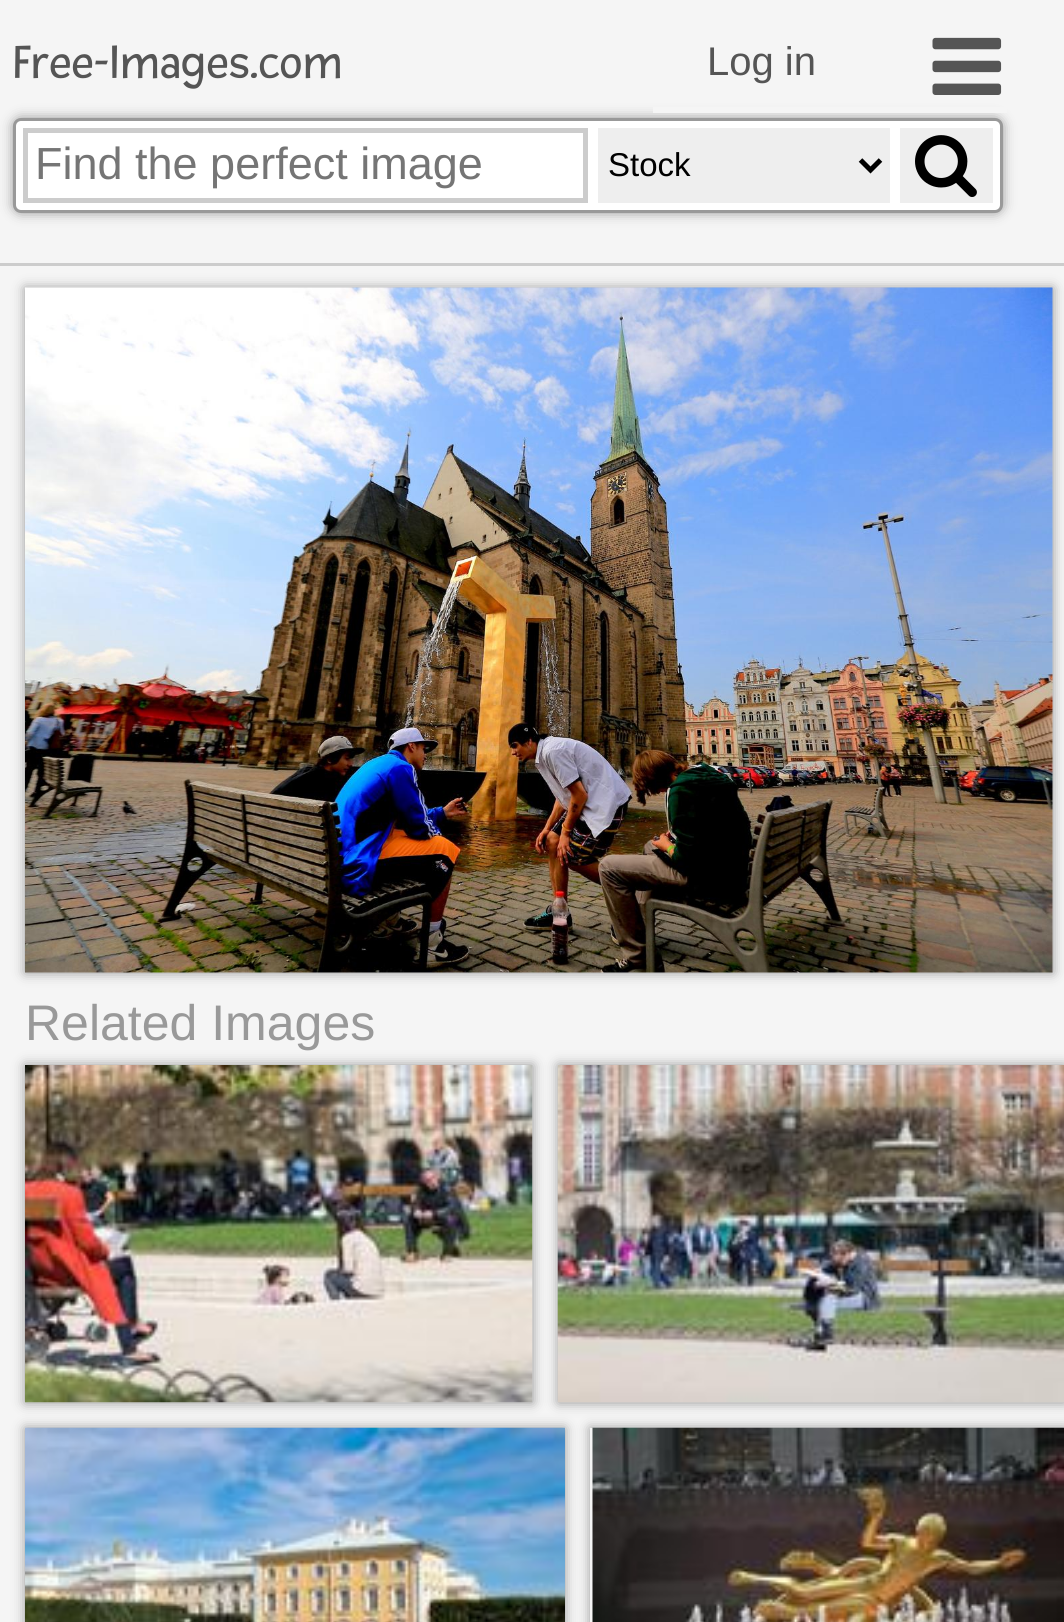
#include <cairo/cairo.h>
#include <math.h>
#include <stddef.h>

static cairo_t *cr;

static void use_color(int r, int g, int b) {
  cairo_set_source_rgb(cr, r / 255.0, g / 255.0, b / 255.0);
}

static void text(double x, double y, const char *s, const char *family, double size, int italic, int bold, int r, int g, int b) {
  cairo_select_font_face(cr, family, italic ? CAIRO_FONT_SLANT_ITALIC : CAIRO_FONT_SLANT_NORMAL,
    bold ? CAIRO_FONT_WEIGHT_BOLD : CAIRO_FONT_WEIGHT_NORMAL);
  cairo_set_font_size(cr, size);
  use_color(r, g, b);
  cairo_move_to(cr, x, y);
  cairo_show_text(cr, s);
}

static void box(double x, double y, double w, double h, int r, int g, int b) {
  use_color(r, g, b);
  cairo_rectangle(cr, x, y, w, h);
  cairo_fill(cr);
}

static void round_rect(double x, double y, double w, double h, double r) {
  cairo_new_sub_path(cr);
  cairo_arc(cr, x + w - r, y + h - r, r, 0, M_PI / 2);
  cairo_arc(cr, x + r, y + h - r, r, M_PI / 2, M_PI);
  cairo_arc(cr, x + r, y + r, r, M_PI, 1.5 * M_PI);
  cairo_arc(cr, x + w - r, y + r, r, 1.5 * M_PI, 2 * M_PI);
  cairo_close_path(cr);
}

static void shadow(double x, double y, double w, double h, double r, double blur, double alpha) {
  cairo_push_group_with_content(cr, CAIRO_CONTENT_ALPHA);
  cairo_set_operator(cr, CAIRO_OPERATOR_SOURCE);
  for (int i = 15; i >= -15 && fmin(w, h) + blur * i / 3 > 0; i -= 2) {
    double e = blur * i / 6;
    cairo_set_source_rgba(cr, 0, 0, 0, alpha * erfc((i - 1) / 8.5) / 2);
    round_rect(x - e, y - e, w + 2 * e, h + 2 * e, fmax(0, fmin(r + e + blur * .6, fmin(w, h) / 2 + e)));
    cairo_fill(cr);
  }
  cairo_pattern_t *soft = cairo_pop_group(cr);
  cairo_mask(cr, soft);
  cairo_pattern_destroy(soft);
}

static void picture(const char *path, double x, double y, double w, double h) {
  cairo_surface_t *image = cairo_image_surface_create_from_png(path);
  cairo_save(cr);
  cairo_set_source_surface(cr, image, x, y);
  cairo_rectangle(cr, x, y, w, h);
  cairo_fill(cr);
  cairo_restore(cr);
  cairo_surface_destroy(image);
}

static void draw(void) {
  use_color(245, 245, 245);
  cairo_paint(cr);
  box(0, 263, 1064, 3, 204, 204, 204);
  use_color(153, 153, 153);
  shadow(13, 118, 990, 95, 8, 6, 1);
  use_color(255, 255, 255);
  round_rect(14.5, 119.5, 987, 92, 6.5);
  cairo_fill_preserve(cr);
  use_color(153, 153, 153);
  cairo_set_line_width(cr, 3);
  cairo_stroke(cr);
  cairo_rectangle(cr, 25.5, 130.5, 560, 70);
  use_color(204, 204, 204);
  cairo_set_line_width(cr, 5);
  cairo_stroke(cr);
  box(598, 128, 292, 75, 238, 238, 238);
  cairo_new_path(cr);
  cairo_move_to(cr, 860.5, 160);
  cairo_line_to(cr, 870.5, 170);
  cairo_line_to(cr, 880.5, 160);
  use_color(0, 0, 0);
  cairo_stroke(cr);
  box(900, 128, 93, 75, 238, 238, 238);
  picture("img_01.png", 915, 135, 62, 62);
  box(653, 107, 354, 6, 245, 245, 245);
  picture("img_02.png", 932, 37, 70, 58);
  use_color(153, 153, 153);
  shadow(25, 288, 1028, 685, 0, 6, 1);
  picture("img_03.png", 25, 287, 1028, 686);
  shadow(25, 1065, 508, 338, 0, 6, 1);
  picture("img_04.png", 25, 1065, 508, 338);
  shadow(558, 1065, 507, 338, 0, 6, 1);
  picture("img_05.png", 557, 1065, 507, 338);
  shadow(25, 1428, 540, 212, 0, 6, 1);
  picture("img_06.png", 25, 1427, 540, 195);
  cairo_save(cr);
  cairo_set_fill_rule(cr, CAIRO_FILL_RULE_EVEN_ODD);
  cairo_new_path(cr);
  cairo_move_to(cr, 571, 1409);
  cairo_line_to(cr, 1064, 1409);
  cairo_line_to(cr, 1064, 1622);
  cairo_line_to(cr, 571, 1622);
  cairo_close_path(cr);
  cairo_move_to(cr, 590, 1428);
  cairo_line_to(cr, 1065, 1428);
  cairo_line_to(cr, 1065, 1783);
  cairo_line_to(cr, 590, 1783);
  cairo_close_path(cr);
  cairo_clip(cr);
  shadow(590, 1428, 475, 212, 0, 6, 1);
  cairo_restore(cr);
  picture("img_07.png", 592, 1427, 472, 195);
  text(13, 78, "Free-Images.com", "Fresca", 50, 0, 0, 85, 85, 85);
  text(35, 179, "Find the perfect image", "Liberation Sans", 45, 0, 0, 117, 117, 117);
  text(608, 176, "Stock", "Liberation Sans", 33, 0, 0, 0, 0, 0);
  text(707, 75, "Log in", "Liberation Sans", 40, 0, 0, 85, 85, 85);
  text(25, 1040, "Related Images", "Liberation Sans", 50, 0, 0, 153, 153, 153);
}

int main(void) {
  cairo_surface_t *surface = cairo_image_surface_create(CAIRO_FORMAT_RGB24, 1064, 1622);
  cr = cairo_create(surface);
  cairo_font_options_t *options = cairo_font_options_create();
  cairo_font_options_set_hint_metrics(options, CAIRO_HINT_METRICS_OFF);
  cairo_font_options_set_hint_style(options, CAIRO_HINT_STYLE_NONE);
  cairo_set_font_options(cr, options);
  cairo_set_miter_limit(cr, 4);
  draw();
  cairo_surface_write_to_png(surface, "out.png");
  cairo_font_options_destroy(options);
  cairo_destroy(cr);
  cairo_surface_destroy(surface);
  return 0;
}
